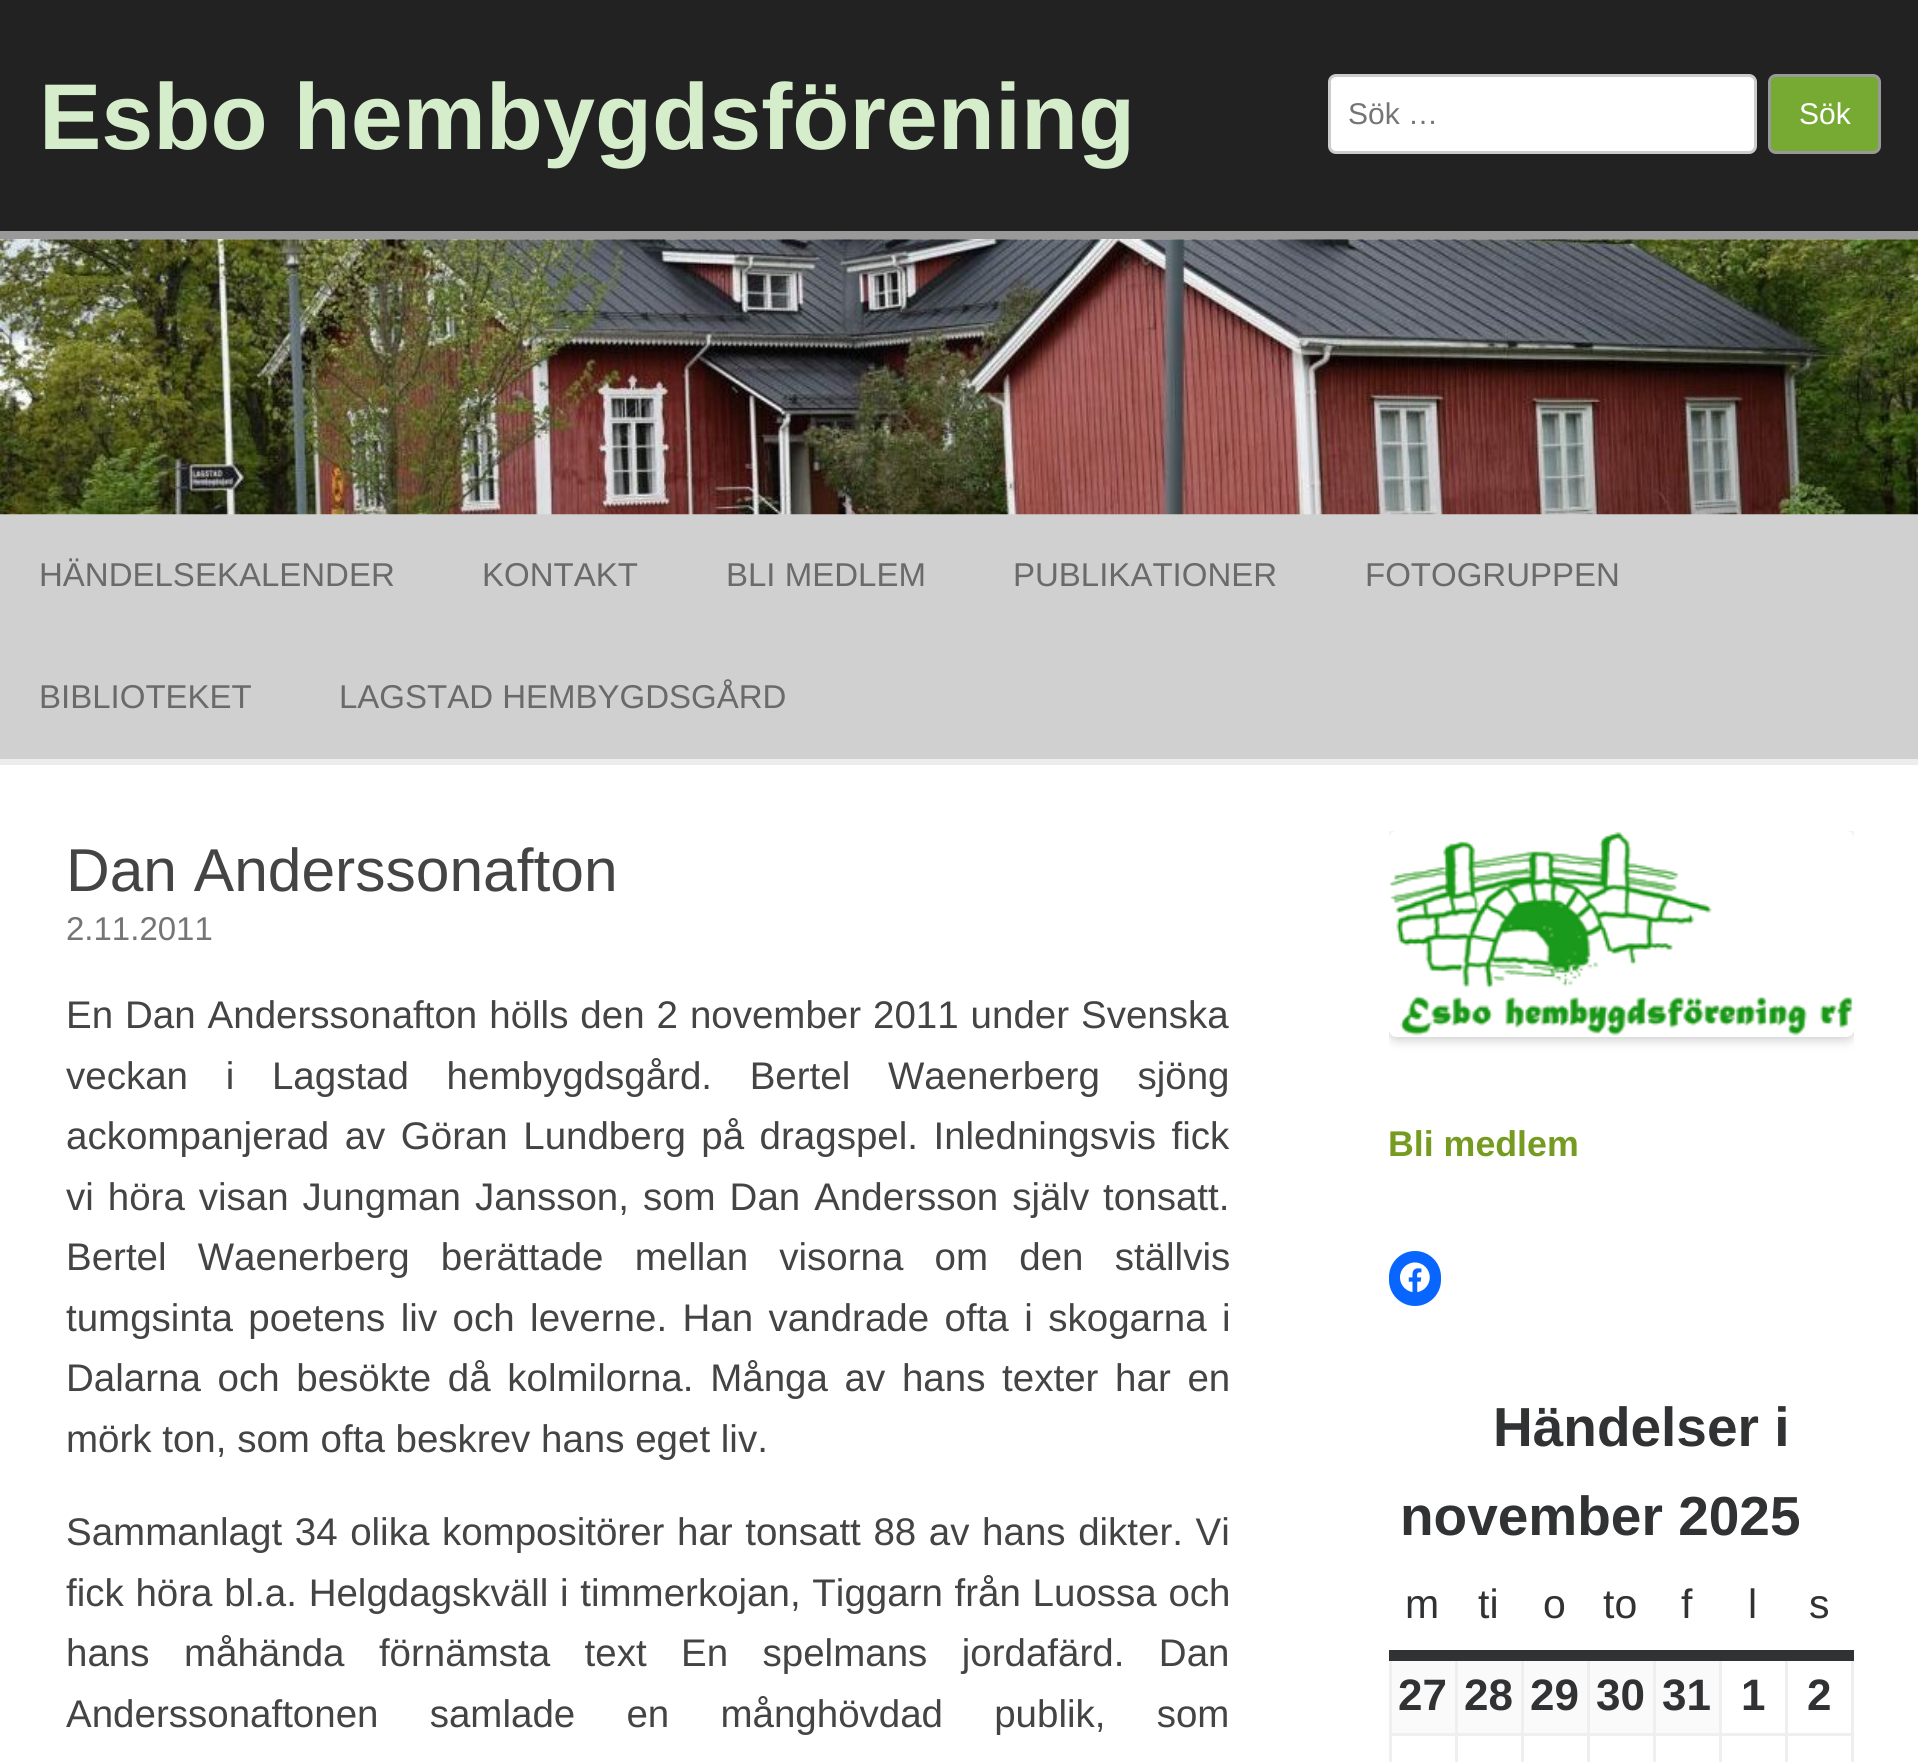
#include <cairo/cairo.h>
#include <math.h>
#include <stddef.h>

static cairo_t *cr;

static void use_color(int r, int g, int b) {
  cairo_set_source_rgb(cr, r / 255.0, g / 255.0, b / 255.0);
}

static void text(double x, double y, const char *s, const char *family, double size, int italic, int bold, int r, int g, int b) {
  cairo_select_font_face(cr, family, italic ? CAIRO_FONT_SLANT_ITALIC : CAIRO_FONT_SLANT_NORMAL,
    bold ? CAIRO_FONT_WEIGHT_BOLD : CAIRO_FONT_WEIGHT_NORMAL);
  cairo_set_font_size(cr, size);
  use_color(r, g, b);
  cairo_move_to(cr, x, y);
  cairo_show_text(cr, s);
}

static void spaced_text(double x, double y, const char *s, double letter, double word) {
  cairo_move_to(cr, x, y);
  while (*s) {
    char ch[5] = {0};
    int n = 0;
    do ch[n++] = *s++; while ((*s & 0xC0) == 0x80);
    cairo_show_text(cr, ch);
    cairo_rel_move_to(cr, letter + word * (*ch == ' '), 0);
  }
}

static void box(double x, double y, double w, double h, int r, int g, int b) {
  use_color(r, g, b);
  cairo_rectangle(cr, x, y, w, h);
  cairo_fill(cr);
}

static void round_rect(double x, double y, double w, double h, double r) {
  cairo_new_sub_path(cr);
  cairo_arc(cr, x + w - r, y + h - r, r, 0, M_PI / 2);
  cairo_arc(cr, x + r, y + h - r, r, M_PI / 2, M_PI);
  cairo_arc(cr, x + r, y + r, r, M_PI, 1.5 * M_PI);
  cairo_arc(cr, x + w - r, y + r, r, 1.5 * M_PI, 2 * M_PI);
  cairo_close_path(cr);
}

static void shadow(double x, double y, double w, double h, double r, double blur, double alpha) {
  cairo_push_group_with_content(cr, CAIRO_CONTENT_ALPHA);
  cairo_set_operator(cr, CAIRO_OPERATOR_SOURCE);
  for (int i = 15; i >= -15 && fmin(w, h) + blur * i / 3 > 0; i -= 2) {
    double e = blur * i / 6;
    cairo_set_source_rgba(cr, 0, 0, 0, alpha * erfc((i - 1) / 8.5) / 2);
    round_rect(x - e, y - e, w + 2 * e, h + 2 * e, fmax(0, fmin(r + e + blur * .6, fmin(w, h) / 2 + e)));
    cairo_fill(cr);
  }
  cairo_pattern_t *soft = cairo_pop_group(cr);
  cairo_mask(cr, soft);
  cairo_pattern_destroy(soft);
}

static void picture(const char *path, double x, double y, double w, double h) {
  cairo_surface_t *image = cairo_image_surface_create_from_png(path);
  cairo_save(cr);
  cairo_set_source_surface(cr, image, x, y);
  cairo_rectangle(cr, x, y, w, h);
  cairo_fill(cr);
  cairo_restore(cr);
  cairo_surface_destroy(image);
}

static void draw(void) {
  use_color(255, 255, 255);
  cairo_paint(cr);
  box(0, 0, 1918, 231, 34, 34, 34);
  box(0, 231, 1918, 8, 153, 153, 153);
  use_color(255, 255, 255);
  round_rect(1329.5, 75.5, 426, 77, 6.5);
  cairo_fill_preserve(cr);
  use_color(204, 204, 204);
  cairo_set_line_width(cr, 3);
  cairo_stroke(cr);
  use_color(119, 170, 51);
  round_rect(1769.5, 75.5, 110, 77, 6.5);
  cairo_fill_preserve(cr);
  use_color(153, 153, 153);
  cairo_stroke(cr);
  box(0, 514, 1918, 245, 208, 208, 208);
  picture("img_01.png", 0, 239, 1918, 276);
  box(0, 759, 1918, 6, 237, 237, 237);
  cairo_save(cr);
  cairo_rectangle(cr, 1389, 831, 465, 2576);
  cairo_clip(cr);
  cairo_set_fill_rule(cr, CAIRO_FILL_RULE_EVEN_ODD);
  cairo_new_path(cr);
  cairo_move_to(cr, 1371, 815);
  cairo_line_to(cr, 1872, 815);
  cairo_line_to(cr, 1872, 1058);
  cairo_line_to(cr, 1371, 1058);
  cairo_close_path(cr);
  cairo_move_to(cr, 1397, 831);
  cairo_line_to(cr, 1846, 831);
  cairo_curve_to(cr, 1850.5, 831, 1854, 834.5, 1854, 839);
  cairo_line_to(cr, 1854, 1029);
  cairo_curve_to(cr, 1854, 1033.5, 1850.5, 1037, 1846, 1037);
  cairo_line_to(cr, 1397, 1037);
  cairo_curve_to(cr, 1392.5, 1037, 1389, 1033.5, 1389, 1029);
  cairo_line_to(cr, 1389, 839);
  cairo_curve_to(cr, 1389, 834.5, 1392.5, 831, 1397, 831);
  cairo_close_path(cr);
  cairo_clip(cr);
  use_color(0, 0, 0);
  shadow(1389, 833, 465, 207, 8, 5.5, 0.2);
  cairo_restore(cr);
  picture("img_02.png", 1389, 832, 464, 204);
  use_color(8, 102, 255);
  round_rect(1389, 1251, 52, 55, 26);
  cairo_fill(cr);
  picture("img_03.png", 1400, 1262, 30, 31);
  box(1785, 1733, 69, 3, 239, 239, 239);
  box(1785, 1733, 3, 29, 239, 239, 239);
  box(1719, 1733, 69, 3, 239, 239, 239);
  box(1719, 1733, 3, 29, 239, 239, 239);
  box(1653, 1733, 69, 3, 239, 239, 239);
  box(1653, 1733, 3, 29, 239, 239, 239);
  box(1587, 1733, 69, 3, 239, 239, 239);
  box(1587, 1733, 3, 29, 239, 239, 239);
  box(1521, 1733, 69, 3, 239, 239, 239);
  box(1521, 1733, 3, 29, 239, 239, 239);
  box(1455, 1733, 69, 3, 239, 239, 239);
  box(1455, 1733, 3, 29, 239, 239, 239);
  box(1389, 1733, 69, 3, 239, 239, 239);
  box(1389, 1653, 3, 109, 239, 239, 239);
  box(1851, 1653, 3, 109, 239, 239, 239);
  box(1455, 1653, 3, 82, 239, 239, 239);
  box(1521, 1653, 3, 82, 239, 239, 239);
  box(1587, 1653, 3, 82, 239, 239, 239);
  box(1653, 1653, 3, 82, 239, 239, 239);
  box(1719, 1653, 3, 82, 239, 239, 239);
  box(1785, 1653, 3, 82, 239, 239, 239);
  box(1389, 1650, 465, 11, 49, 50, 51);
  box(1392, 1661, 63, 72, 250, 250, 250);
  box(1458, 1661, 63, 72, 250, 250, 250);
  box(1524, 1661, 63, 72, 250, 250, 250);
  box(1590, 1661, 63, 72, 250, 250, 250);
  box(1656, 1661, 63, 72, 250, 250, 250);
  text(39, 149, "Esbo hembygdsförening", "Liberation Sans", 93.5, 0, 1, 213, 237, 203);
  text(1348, 124, "Sök …", "Liberation Sans", 30, 0, 0, 117, 117, 117);
  text(1799, 124, "Sök", "Liberation Sans", 30, 0, 0, 255, 255, 255);
  text(39, 586, "HÄNDELSEKALENDER", "Liberation Sans", 33, 0, 0, 106, 106, 106);
  text(482, 586, "KONTAKT", "Liberation Sans", 33, 0, 0, 106, 106, 106);
  text(726, 586, "BLI MEDLEM", "Liberation Sans", 33, 0, 0, 106, 106, 106);
  text(1013, 586, "PUBLIKATIONER", "Liberation Sans", 33, 0, 0, 106, 106, 106);
  text(1365, 586, "FOTOGRUPPEN", "Liberation Sans", 33, 0, 0, 106, 106, 106);
  text(39, 708, "BIBLIOTEKET", "Liberation Sans", 33, 0, 0, 106, 106, 106);
  text(339, 708, "LAGSTAD HEMBYGDSGÅRD", "Liberation Sans", 33, 0, 0, 106, 106, 106);
  text(66, 891, "Dan Anderssonafton", "Liberation Sans", 60.5, 0, 0, 68, 68, 68);
  text(66, 940, "2.11.2011", "Liberation Sans", 33, 0, 0, 117, 117, 117);
  cairo_set_font_size(cr, 38.5);
  use_color(68, 68, 68);
  spaced_text(66, 1028, "En Dan Anderssonafton hölls den 2 november 2011 under Svenska", 0, 1.25);
  spaced_text(66, 1089, "veckan i Lagstad hembygdsgård. Bertel Waenerberg sjöng", 0, 27);
  spaced_text(66, 1149, "ackompanjerad av Göran Lundberg på dragspel. Inledningsvis fick", 0, 4.75);
  spaced_text(66, 1210, "vi höra visan Jungman Jansson, som Dan Andersson själv tonsatt.", 0, 3.25);
  spaced_text(66, 1270, "Bertel Waenerberg berättade mellan visorna om den ställvis", 0, 20.5);
  spaced_text(66, 1331, "tumgsinta poetens liv och leverne. Han vandrade ofta i skogarna i", 0, 4.75);
  spaced_text(66, 1391, "Dalarna och besökte då kolmilorna. Många av hans texter har en", 0, 6);
  text(66, 1452, "mörk ton, som ofta beskrev hans eget liv.", "Liberation Sans", 38.5, 0, 0, 68, 68, 68);
  spaced_text(66, 1545, "Sammanlagt 34 olika kompositörer har tonsatt 88 av hans dikter. Vi", 0, 1.9);
  spaced_text(66, 1606, "fick höra bl.a. Helgdagskväll i timmerkojan, Tiggarn från Luossa och", 0, 1);
  spaced_text(66, 1666, "hans måhända förnämsta text En spelmans jordafärd. Dan", 0, 23.75);
  spaced_text(66, 1727, "Anderssonaftonen samlade en månghövdad publik, som", 0, 40.5);
  text(1388, 1156, "Bli medlem", "Liberation Sans", 35.75, 0, 1, 117, 155, 33);
  text(1493, 1446, "Händelser i", "Liberation Sans", 55, 0, 1, 49, 50, 51);
  text(1400, 1535, "november 2025", "Liberation Sans", 55, 0, 1, 49, 50, 51);
  text(1405, 1618, "m", "Liberation Sans", 41, 0, 0, 49, 50, 51);
  text(1478, 1618, "ti", "Liberation Sans", 41, 0, 0, 49, 50, 51);
  text(1543, 1618, "o", "Liberation Sans", 41, 0, 0, 49, 50, 51);
  text(1603, 1618, "to", "Liberation Sans", 41, 0, 0, 49, 50, 51);
  text(1681, 1618, "f", "Liberation Sans", 41, 0, 0, 49, 50, 51);
  text(1748, 1618, "l", "Liberation Sans", 41, 0, 0, 49, 50, 51);
  text(1809, 1618, "s", "Liberation Sans", 41, 0, 0, 49, 50, 51);
  text(1398, 1710, "27", "Liberation Sans", 44, 0, 1, 49, 50, 51);
  text(1464, 1710, "28", "Liberation Sans", 44, 0, 1, 49, 50, 51);
  text(1530, 1710, "29", "Liberation Sans", 44, 0, 1, 49, 50, 51);
  text(1596, 1710, "30", "Liberation Sans", 44, 0, 1, 49, 50, 51);
  text(1662, 1710, "31", "Liberation Sans", 44, 0, 1, 49, 50, 51);
  text(1741, 1710, "1", "Liberation Sans", 44, 0, 1, 49, 50, 51);
  text(1807, 1710, "2", "Liberation Sans", 44, 0, 1, 49, 50, 51);
}

int main(void) {
  cairo_surface_t *surface = cairo_image_surface_create(CAIRO_FORMAT_RGB24, 1918, 1762);
  cr = cairo_create(surface);
  cairo_font_options_t *options = cairo_font_options_create();
  cairo_font_options_set_hint_metrics(options, CAIRO_HINT_METRICS_OFF);
  cairo_font_options_set_hint_style(options, CAIRO_HINT_STYLE_NONE);
  cairo_set_font_options(cr, options);
  cairo_set_miter_limit(cr, 4);
  draw();
  cairo_surface_write_to_png(surface, "out.png");
  cairo_font_options_destroy(options);
  cairo_destroy(cr);
  cairo_surface_destroy(surface);
  return 0;
}
